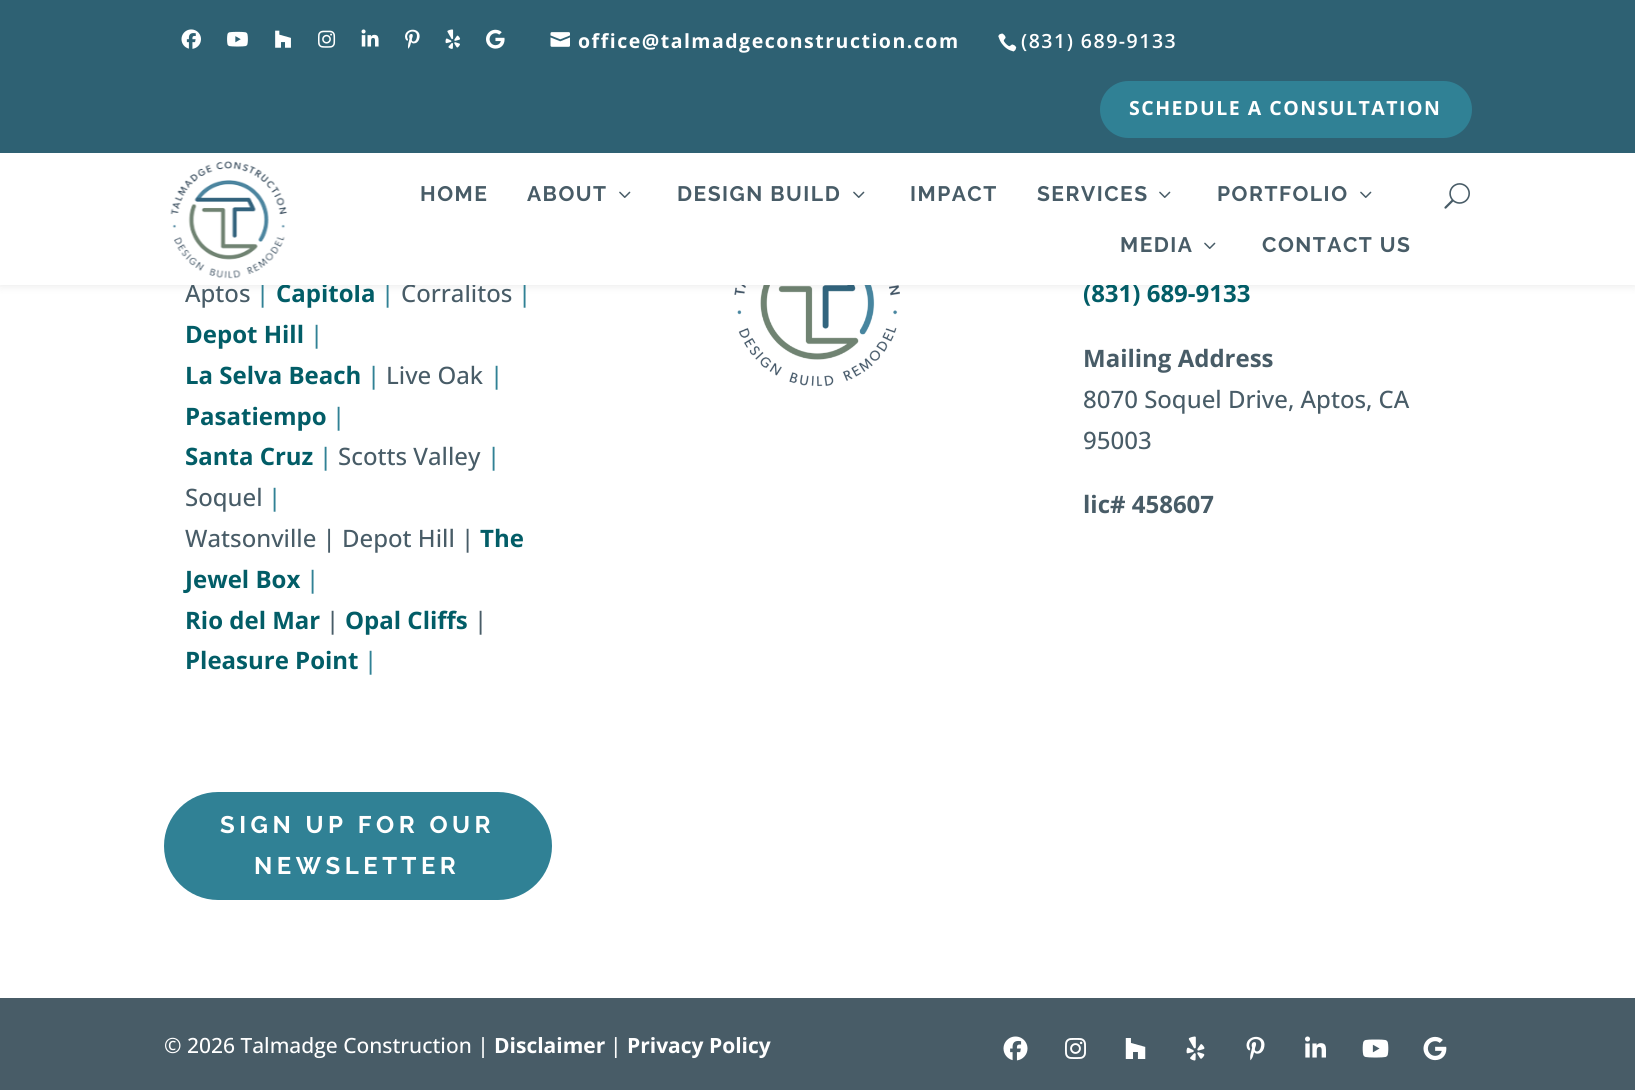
#include <cairo/cairo.h>
#include <math.h>
#include <stddef.h>

static cairo_t *cr;

static void use_color(int r, int g, int b) {
  cairo_set_source_rgb(cr, r / 255.0, g / 255.0, b / 255.0);
}

static void text(double x, double y, const char *s, const char *family, double size, int italic, int bold, int r, int g, int b) {
  cairo_select_font_face(cr, family, italic ? CAIRO_FONT_SLANT_ITALIC : CAIRO_FONT_SLANT_NORMAL,
    bold ? CAIRO_FONT_WEIGHT_BOLD : CAIRO_FONT_WEIGHT_NORMAL);
  cairo_set_font_size(cr, size);
  use_color(r, g, b);
  cairo_move_to(cr, x, y);
  cairo_show_text(cr, s);
}

static void spaced_text(double x, double y, const char *s, double letter, double word) {
  cairo_move_to(cr, x, y);
  while (*s) {
    char ch[5] = {0};
    int n = 0;
    do ch[n++] = *s++; while ((*s & 0xC0) == 0x80);
    cairo_show_text(cr, ch);
    cairo_rel_move_to(cr, letter + word * (*ch == ' '), 0);
  }
}

static void box(double x, double y, double w, double h, int r, int g, int b) {
  use_color(r, g, b);
  cairo_rectangle(cr, x, y, w, h);
  cairo_fill(cr);
}

static void round_rect(double x, double y, double w, double h, double r) {
  cairo_new_sub_path(cr);
  cairo_arc(cr, x + w - r, y + h - r, r, 0, M_PI / 2);
  cairo_arc(cr, x + r, y + h - r, r, M_PI / 2, M_PI);
  cairo_arc(cr, x + r, y + r, r, M_PI, 1.5 * M_PI);
  cairo_arc(cr, x + w - r, y + r, r, 1.5 * M_PI, 2 * M_PI);
  cairo_close_path(cr);
}

static void shadow(double x, double y, double w, double h, double r, double blur, double alpha) {
  cairo_push_group_with_content(cr, CAIRO_CONTENT_ALPHA);
  cairo_set_operator(cr, CAIRO_OPERATOR_SOURCE);
  for (int i = 15; i >= -15 && fmin(w, h) + blur * i / 3 > 0; i -= 2) {
    double e = blur * i / 6;
    cairo_set_source_rgba(cr, 0, 0, 0, alpha * erfc((i - 1) / 8.5) / 2);
    round_rect(x - e, y - e, w + 2 * e, h + 2 * e, fmax(0, fmin(r + e + blur * .6, fmin(w, h) / 2 + e)));
    cairo_fill(cr);
  }
  cairo_pattern_t *soft = cairo_pop_group(cr);
  cairo_mask(cr, soft);
  cairo_pattern_destroy(soft);
}

static void picture(const char *path, double x, double y, double w, double h) {
  cairo_surface_t *image = cairo_image_surface_create_from_png(path);
  cairo_save(cr);
  cairo_set_source_surface(cr, image, x, y);
  cairo_rectangle(cr, x, y, w, h);
  cairo_fill(cr);
  cairo_restore(cr);
  cairo_surface_destroy(image);
}

static void draw(void) {
  use_color(255, 255, 255);
  cairo_paint(cr);
  picture("img_14.png", 734, 285, 166, 102);
  use_color(0, 0, 0);
  shadow(0, 153, 1635, 132, 0, 5, 0.1);
  box(0, 0, 1635, 153, 46, 97, 115);
  picture("img_01.png", 181, 29, 20, 20);
  picture("img_02.png", 227, 31, 21, 16);
  picture("img_03.png", 275, 30, 16, 18);
  picture("img_04.png", 318, 30, 18, 18);
  picture("img_05.png", 361, 29, 18, 18);
  picture("img_06.png", 405, 29, 15, 20);
  picture("img_07.png", 445, 29, 16, 20);
  picture("img_08.png", 486, 29, 19, 20);
  picture("img_09.png", 550, 32, 20, 15);
  picture("img_10.png", 998, 33, 19, 19);
  use_color(48, 129, 149);
  round_rect(1100, 81, 372, 57, 28.5);
  cairo_fill(cr);
  round_rect(167, 795, 382, 102, 51);
  cairo_fill_preserve(cr);
  cairo_set_line_width(cr, 6);
  cairo_stroke(cr);
  box(0, 998, 1635, 92, 72, 92, 103);
  picture("img_15.png", 1003, 1036, 25, 25);
  picture("img_16.png", 1065, 1038, 21, 21);
  picture("img_17.png", 1125, 1038, 21, 21);
  picture("img_18.png", 1186, 1036, 19, 25);
  picture("img_19.png", 1246, 1036, 19, 25);
  picture("img_20.png", 1305, 1036, 21, 22);
  picture("img_21.png", 1362, 1039, 27, 19);
  picture("img_22.png", 1423, 1036, 24, 25);
  cairo_select_font_face(cr, "Open Sans", CAIRO_FONT_SLANT_NORMAL, CAIRO_FONT_WEIGHT_BOLD);
  cairo_set_font_size(cr, 19.5);
  use_color(255, 255, 255);
  spaced_text(578, 48, "office@talmadgeconstruction.com", 1.5, 0);
  cairo_select_font_face(cr, "Open Sans SemiBold", CAIRO_FONT_SLANT_NORMAL, CAIRO_FONT_WEIGHT_NORMAL);
  spaced_text(1021, 48, "(831) 689-9133", 1.5, 0);
  cairo_select_font_face(cr, "Open Sans", CAIRO_FONT_SLANT_NORMAL, CAIRO_FONT_WEIGHT_BOLD);
  spaced_text(1129, 115, "SCHEDULE A CONSULTATION", 1.5, 0);
  text(185, 302, "Aptos", "Open Sans Medium", 24, 0, 0, 72, 92, 103);
  text(256, 302, "|", "Open Sans Medium", 24, 0, 0, 48, 129, 149);
  text(276, 302, "Capitola", "Open Sans", 24, 0, 1, 2, 93, 103);
  text(381, 302, "|", "Open Sans Medium", 24, 0, 0, 48, 129, 149);
  text(401, 302, "Corralitos", "Open Sans Medium", 24, 0, 0, 72, 92, 103);
  text(518, 302, "|", "Open Sans Medium", 24, 0, 0, 48, 129, 149);
  text(185, 343, "Depot Hill", "Open Sans", 24, 0, 1, 2, 93, 103);
  text(310, 343, "|", "Open Sans Medium", 24, 0, 0, 48, 129, 149);
  text(185, 384, "La Selva Beach", "Open Sans", 24, 0, 1, 2, 93, 103);
  text(367, 384, "|", "Open Sans Medium", 24, 0, 0, 48, 129, 149);
  text(386, 384, "Live Oak", "Open Sans Medium", 24, 0, 0, 72, 92, 103);
  text(490, 384, "|", "Open Sans Medium", 24, 0, 0, 48, 129, 149);
  text(185, 425, "Pasatiempo", "Open Sans", 24, 0, 1, 2, 93, 103);
  text(332, 425, "|", "Open Sans Medium", 24, 0, 0, 48, 129, 149);
  text(185, 465, "Santa Cruz", "Open Sans", 24, 0, 1, 2, 93, 103);
  text(319, 465, "|", "Open Sans Medium", 24, 0, 0, 48, 129, 149);
  text(338, 465, "Scotts Valley", "Open Sans Medium", 24, 0, 0, 72, 92, 103);
  text(487, 465, "|", "Open Sans Medium", 24, 0, 0, 48, 129, 149);
  text(185, 506, "Soquel", "Open Sans Medium", 24, 0, 0, 72, 92, 103);
  text(268, 506, "|", "Open Sans Medium", 24, 0, 0, 48, 129, 149);
  text(185, 547, "Watsonville | Depot Hill |", "Open Sans Medium", 24, 0, 0, 72, 92, 103);
  text(480, 547, "The", "Open Sans", 24, 0, 1, 2, 93, 103);
  text(185, 588, "Jewel Box", "Open Sans", 24, 0, 1, 2, 93, 103);
  text(306, 588, "|", "Open Sans Medium", 24, 0, 0, 48, 129, 149);
  text(185, 629, "Rio del Mar", "Open Sans", 24, 0, 1, 2, 93, 103);
  text(326, 629, "|", "Open Sans Medium", 24, 0, 0, 72, 92, 103);
  text(345, 629, "Opal Cliffs", "Open Sans", 24, 0, 1, 2, 93, 103);
  text(474, 629, "|", "Open Sans Medium", 24, 0, 0, 72, 92, 103);
  text(185, 669, "Pleasure Point", "Open Sans", 24, 0, 1, 2, 93, 103);
  text(364, 669, "|", "Open Sans Medium", 24, 0, 0, 48, 129, 149);
  cairo_select_font_face(cr, "Raleway", CAIRO_FONT_SLANT_NORMAL, CAIRO_FONT_WEIGHT_BOLD);
  use_color(255, 255, 255);
  spaced_text(220, 833, "SIGN UP FOR OUR", 4.5, 0);
  spaced_text(254, 874, "NEWSLETTER", 4.5, 0);
  text(1083, 302, "(831) 689-9133", "Open Sans", 24, 0, 1, 2, 93, 103);
  box(0, 153, 1635, 132, 255, 255, 255);
  picture("img_13.png", 1444, 183, 26, 26);
  cairo_select_font_face(cr, "Raleway", CAIRO_FONT_SLANT_NORMAL, CAIRO_FONT_WEIGHT_BOLD);
  cairo_set_font_size(cr, 21);
  use_color(72, 92, 103);
  spaced_text(1262, 252, "CONTACT US", 1.5, 0);
  picture("img_12.png", 1204, 242, 12, 7);
  spaced_text(1120, 252, "MEDIA", 1.5, 0);
  picture("img_12.png", 1360, 191, 12, 7);
  spaced_text(1217, 201, "PORTFOLIO", 1.5, 0);
  picture("img_12.png", 1159, 191, 12, 7);
  spaced_text(1037, 201, "SERVICES", 1.5, 0);
  spaced_text(910, 201, "IMPACT", 1.5, 0);
  picture("img_12.png", 853, 191, 12, 7);
  spaced_text(677, 201, "DESIGN BUILD", 1.5, 0);
  picture("img_12.png", 619, 191, 12, 7);
  spaced_text(527, 201, "ABOUT", 1.5, 0);
  spaced_text(420, 201, "HOME", 1.5, 0);
  picture("img_11.png", 170, 161, 118, 118);
  text(1083, 367, "Mailing Address", "Open Sans", 24, 0, 1, 72, 92, 103);
  text(1083, 408, "8070 Soquel Drive, Aptos, CA", "Open Sans Medium", 24, 0, 0, 72, 92, 103);
  text(1083, 449, "95003", "Open Sans Medium", 24, 0, 0, 72, 92, 103);
  text(1083, 513, "lic# 458607", "Open Sans", 24, 0, 1, 72, 92, 103);
  text(164, 1053, "© 2026 Talmadge Construction |", "Open Sans Medium", 21, 0, 0, 255, 255, 255);
  text(494, 1053, "Disclaimer", "Open Sans", 21, 0, 1, 255, 255, 255);
  text(610, 1053, "|", "Open Sans Medium", 21, 0, 0, 255, 255, 255);
  text(627, 1053, "Privacy Policy", "Open Sans", 21, 0, 1, 255, 255, 255);
}

int main(void) {
  cairo_surface_t *surface = cairo_image_surface_create(CAIRO_FORMAT_RGB24, 1635, 1090);
  cr = cairo_create(surface);
  cairo_font_options_t *options = cairo_font_options_create();
  cairo_font_options_set_hint_metrics(options, CAIRO_HINT_METRICS_OFF);
  cairo_font_options_set_hint_style(options, CAIRO_HINT_STYLE_NONE);
  cairo_set_font_options(cr, options);
  cairo_set_miter_limit(cr, 4);
  draw();
  cairo_surface_write_to_png(surface, "out.png");
  cairo_font_options_destroy(options);
  cairo_destroy(cr);
  cairo_surface_destroy(surface);
  return 0;
}
